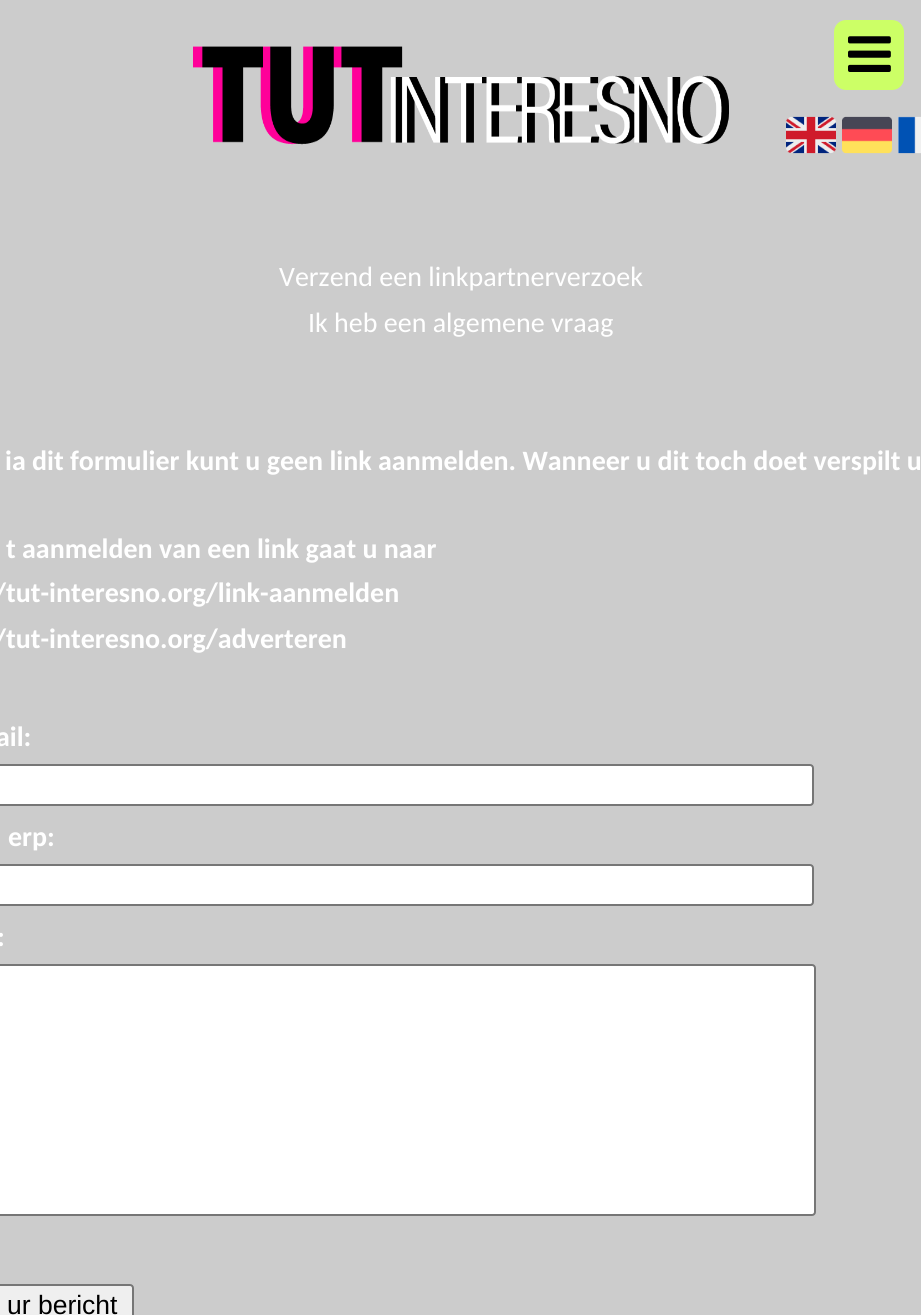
#include <cairo/cairo.h>
#include <math.h>
#include <stddef.h>

static cairo_t *cr;

static void use_color(int r, int g, int b) {
  cairo_set_source_rgb(cr, r / 255.0, g / 255.0, b / 255.0);
}

static void text(double x, double y, const char *s, const char *family, double size, int italic, int bold, int r, int g, int b) {
  cairo_select_font_face(cr, family, italic ? CAIRO_FONT_SLANT_ITALIC : CAIRO_FONT_SLANT_NORMAL,
    bold ? CAIRO_FONT_WEIGHT_BOLD : CAIRO_FONT_WEIGHT_NORMAL);
  cairo_set_font_size(cr, size);
  use_color(r, g, b);
  cairo_move_to(cr, x, y);
  cairo_show_text(cr, s);
}

static void round_rect(double x, double y, double w, double h, double r) {
  cairo_new_sub_path(cr);
  cairo_arc(cr, x + w - r, y + h - r, r, 0, M_PI / 2);
  cairo_arc(cr, x + r, y + h - r, r, M_PI / 2, M_PI);
  cairo_arc(cr, x + r, y + r, r, M_PI, 1.5 * M_PI);
  cairo_arc(cr, x + w - r, y + r, r, 1.5 * M_PI, 2 * M_PI);
  cairo_close_path(cr);
}

static void picture(const char *path, double x, double y, double w, double h) {
  cairo_surface_t *image = cairo_image_surface_create_from_png(path);
  cairo_save(cr);
  cairo_set_source_surface(cr, image, x, y);
  cairo_rectangle(cr, x, y, w, h);
  cairo_fill(cr);
  cairo_restore(cr);
  cairo_surface_destroy(image);
}

static void draw(void) {
  use_color(204, 204, 204);
  cairo_paint(cr);
  picture("img_01.png", 193, 46, 536, 99);
  use_color(204, 255, 102);
  round_rect(834, 20, 70, 70, 12);
  cairo_fill(cr);
  picture("img_02.png", 848, 36, 43, 36);
  picture("img_03.png", 786, 116, 50, 38);
  picture("img_04.png", 842, 116, 50, 38);
  picture("img_05.png", 898, 116, 23, 38);
  use_color(255, 255, 255);
  round_rect(-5, 765, 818, 40, 3);
  cairo_fill_preserve(cr);
  use_color(118, 118, 118);
  cairo_stroke(cr);
  use_color(255, 255, 255);
  round_rect(-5, 865, 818, 40, 3);
  cairo_fill_preserve(cr);
  use_color(118, 118, 118);
  cairo_stroke(cr);
  use_color(255, 255, 255);
  round_rect(-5, 965, 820, 250, 3);
  cairo_fill_preserve(cr);
  use_color(118, 118, 118);
  cairo_stroke(cr);
  use_color(239, 239, 239);
  round_rect(-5, 1285, 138, 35, 3);
  cairo_fill_preserve(cr);
  use_color(118, 118, 118);
  cairo_stroke(cr);
  text(279, 286, "Verzend een linkpartnerverzoek", "Carlito", 28, 0, 0, 255, 255, 255);
  text(308, 332, "Ik heb een algemene vraag", "Carlito", 28, 0, 0, 255, 255, 255);
  text(5, 470, "ia dit formulier kunt u geen link aanmelden. Wanneer u dit toch doet verspilt u", "Carlito", 28, 0, 1, 255, 255, 255);
  text(6, 558, "t aanmelden van een link gaat u naar", "Carlito", 28, 0, 1, 255, 255, 255);
  text(-6, 602, "/tut-interesno.org/link-aanmelden", "Carlito", 28, 0, 1, 255, 255, 255);
  text(-6, 648, "/tut-interesno.org/adverteren", "Carlito", 28, 0, 1, 255, 255, 255);
  text(-4, 746, "ail:", "Carlito", 28, 0, 1, 255, 255, 255);
  text(8, 846, "erp:", "Carlito", 28, 0, 1, 255, 255, 255);
  text(-3, 946, ":", "Carlito", 28, 0, 1, 255, 255, 255);
  text(7, 1314, "ur bericht", "Liberation Sans", 26.5, 0, 0, 0, 0, 0);
}

int main(void) {
  cairo_surface_t *surface = cairo_image_surface_create(CAIRO_FORMAT_RGB24, 921, 1315);
  cr = cairo_create(surface);
  cairo_font_options_t *options = cairo_font_options_create();
  cairo_font_options_set_hint_metrics(options, CAIRO_HINT_METRICS_OFF);
  cairo_font_options_set_hint_style(options, CAIRO_HINT_STYLE_NONE);
  cairo_set_font_options(cr, options);
  cairo_set_miter_limit(cr, 4);
  draw();
  cairo_surface_write_to_png(surface, "out.png");
  cairo_font_options_destroy(options);
  cairo_destroy(cr);
  cairo_surface_destroy(surface);
  return 0;
}
